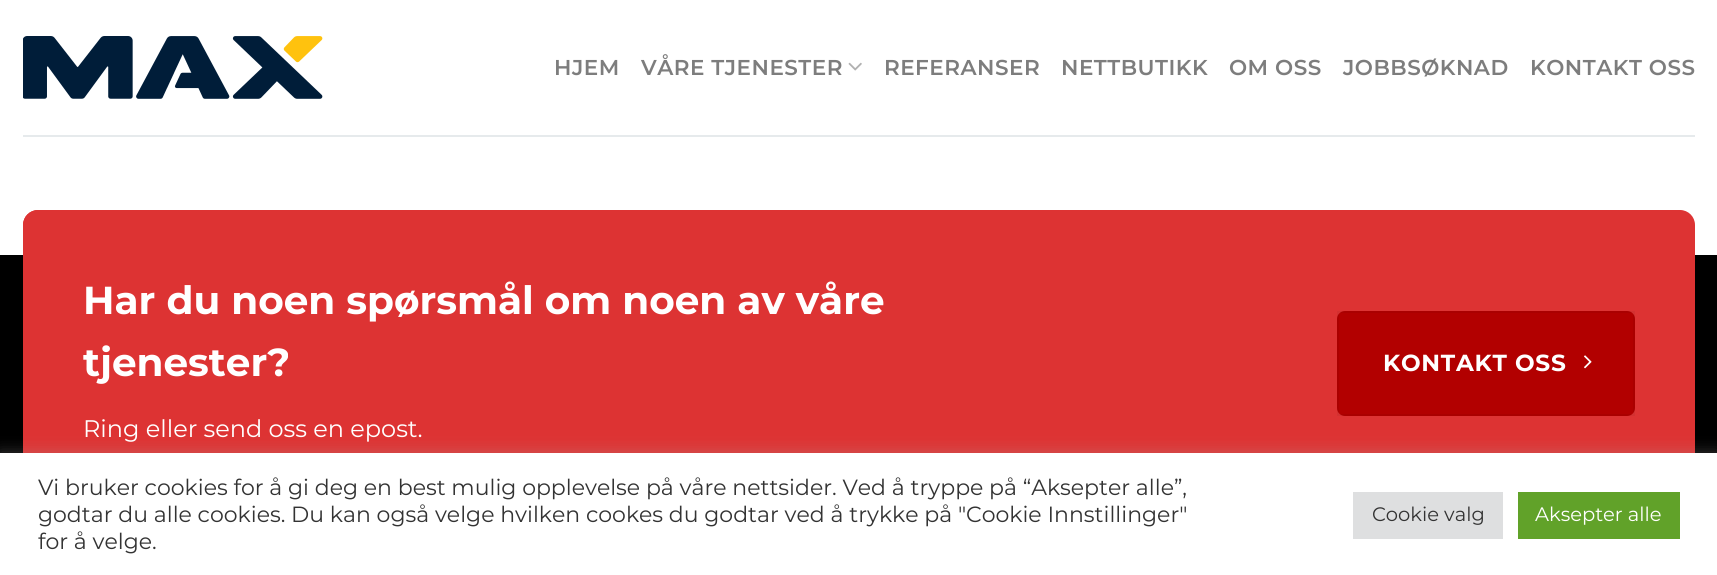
#include <cairo/cairo.h>
#include <math.h>
#include <stddef.h>

static cairo_t *cr;

static void use_color(int r, int g, int b) {
  cairo_set_source_rgb(cr, r / 255.0, g / 255.0, b / 255.0);
}

static void text(double x, double y, const char *s, const char *family, double size, int italic, int bold, int r, int g, int b) {
  cairo_select_font_face(cr, family, italic ? CAIRO_FONT_SLANT_ITALIC : CAIRO_FONT_SLANT_NORMAL,
    bold ? CAIRO_FONT_WEIGHT_BOLD : CAIRO_FONT_WEIGHT_NORMAL);
  cairo_set_font_size(cr, size);
  use_color(r, g, b);
  cairo_move_to(cr, x, y);
  cairo_show_text(cr, s);
}

static void spaced_text(double x, double y, const char *s, double letter, double word) {
  cairo_move_to(cr, x, y);
  while (*s) {
    char ch[5] = {0};
    int n = 0;
    do ch[n++] = *s++; while ((*s & 0xC0) == 0x80);
    cairo_show_text(cr, ch);
    cairo_rel_move_to(cr, letter + word * (*ch == ' '), 0);
  }
}

static void box(double x, double y, double w, double h, int r, int g, int b) {
  use_color(r, g, b);
  cairo_rectangle(cr, x, y, w, h);
  cairo_fill(cr);
}

static void round_rect(double x, double y, double w, double h, double r) {
  cairo_new_sub_path(cr);
  cairo_arc(cr, x + w - r, y + h - r, r, 0, M_PI / 2);
  cairo_arc(cr, x + r, y + h - r, r, M_PI / 2, M_PI);
  cairo_arc(cr, x + r, y + r, r, M_PI, 1.5 * M_PI);
  cairo_arc(cr, x + w - r, y + r, r, 1.5 * M_PI, 2 * M_PI);
  cairo_close_path(cr);
}

static void shadow(double x, double y, double w, double h, double r, double blur, double alpha) {
  cairo_push_group_with_content(cr, CAIRO_CONTENT_ALPHA);
  cairo_set_operator(cr, CAIRO_OPERATOR_SOURCE);
  for (int i = 15; i >= -15 && fmin(w, h) + blur * i / 3 > 0; i -= 2) {
    double e = blur * i / 6;
    cairo_set_source_rgba(cr, 0, 0, 0, alpha * erfc((i - 1) / 8.5) / 2);
    round_rect(x - e, y - e, w + 2 * e, h + 2 * e, fmax(0, fmin(r + e + blur * .6, fmin(w, h) / 2 + e)));
    cairo_fill(cr);
  }
  cairo_pattern_t *soft = cairo_pop_group(cr);
  cairo_mask(cr, soft);
  cairo_pattern_destroy(soft);
}

static void picture(const char *path, double x, double y, double w, double h) {
  cairo_surface_t *image = cairo_image_surface_create_from_png(path);
  cairo_save(cr);
  cairo_set_source_surface(cr, image, x, y);
  cairo_rectangle(cr, x, y, w, h);
  cairo_fill(cr);
  cairo_restore(cr);
  cairo_surface_destroy(image);
}

static void draw(void) {
  use_color(255, 255, 255);
  cairo_paint(cr);
  picture("img_01.png", 23, 36, 300, 63);
  picture("img_02.png", 848, 62, 14, 9);
  box(23, 135, 1672, 2, 230, 234, 236);
  box(0, 255, 1717, 198, 0, 0, 0);
  use_color(221, 51, 51);
  round_rect(23, 210, 1672, 300, 15);
  cairo_fill(cr);
  round_rect(23, 210, 1114, 300, 15);
  cairo_fill(cr);
  use_color(178, 0, 0);
  round_rect(1337, 311, 298, 105, 8);
  cairo_fill(cr);
  cairo_rectangle(cr, 1338, 312, 296, 103);
  cairo_set_source_rgba(cr, 0, 0, 0, 0.05);
  cairo_stroke(cr);
  picture("img_03.png", 1584, 355, 8, 14);
  use_color(172, 171, 171);
  shadow(0, 452, 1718, 123, 0, 7.5, 0.3);
  box(0, 453, 1717, 122, 255, 255, 255);
  box(1353, 492, 150, 47, 222, 223, 224);
  box(1518, 492, 162, 47, 97, 162, 41);
  cairo_select_font_face(cr, "Montserrat SemiBold", CAIRO_FONT_SLANT_NORMAL, CAIRO_FONT_WEIGHT_NORMAL);
  cairo_set_font_size(cr, 21.5);
  use_color(125, 125, 125);
  spaced_text(554, 75, "HJEM", 0.5, 0);
  spaced_text(641, 75, "VÅRE TJENESTER", 0.5, 0);
  spaced_text(884, 75, "REFERANSER", 0.5, 0);
  spaced_text(1061, 75, "NETTBUTIKK", 0.5, 0);
  spaced_text(1229, 75, "OM OSS", 0.5, 0);
  spaced_text(1343, 75, "JOBBSØKNAD", 0.5, 0);
  spaced_text(1530, 75, "KONTAKT OSS", 0.5, 0);
  text(83, 314, "Har du noen spørsmål om noen av våre", "Montserrat", 39, 0, 1, 255, 255, 255);
  text(83, 376, "tjenester?", "Montserrat", 39, 0, 1, 255, 255, 255);
  text(83, 437, "Ring eller send oss en epost.", "Montserrat", 24, 0, 0, 255, 255, 255);
  cairo_select_font_face(cr, "Montserrat", CAIRO_FONT_SLANT_NORMAL, CAIRO_FONT_WEIGHT_BOLD);
  cairo_set_font_size(cr, 23.25);
  spaced_text(1383, 371, "KONTAKT OSS", 0.75, 0);
  text(38, 495, "Vi bruker cookies for å gi deg en best mulig opplevelse på våre nettsider. Ved å tryppe på “Aksepter alle”,", "Montserrat", 22, 0, 0, 51, 51, 51);
  text(38, 522, "godtar du alle cookies. Du kan også velge hvilken cookes du godtar ved å trykke på \"Cookie Innstillinger\"", "Montserrat", 22, 0, 0, 51, 51, 51);
  text(38, 549, "for å velge.", "Montserrat", 22, 0, 0, 51, 51, 51);
  text(1372, 521, "Cookie valg", "Montserrat", 19.5, 0, 0, 51, 51, 51);
  text(1535, 521, "Aksepter alle", "Montserrat", 19.5, 0, 0, 255, 255, 255);
}

int main(void) {
  cairo_surface_t *surface = cairo_image_surface_create(CAIRO_FORMAT_RGB24, 1717, 575);
  cr = cairo_create(surface);
  cairo_font_options_t *options = cairo_font_options_create();
  cairo_font_options_set_hint_metrics(options, CAIRO_HINT_METRICS_OFF);
  cairo_font_options_set_hint_style(options, CAIRO_HINT_STYLE_NONE);
  cairo_set_font_options(cr, options);
  cairo_set_miter_limit(cr, 4);
  draw();
  cairo_surface_write_to_png(surface, "out.png");
  cairo_font_options_destroy(options);
  cairo_destroy(cr);
  cairo_surface_destroy(surface);
  return 0;
}
